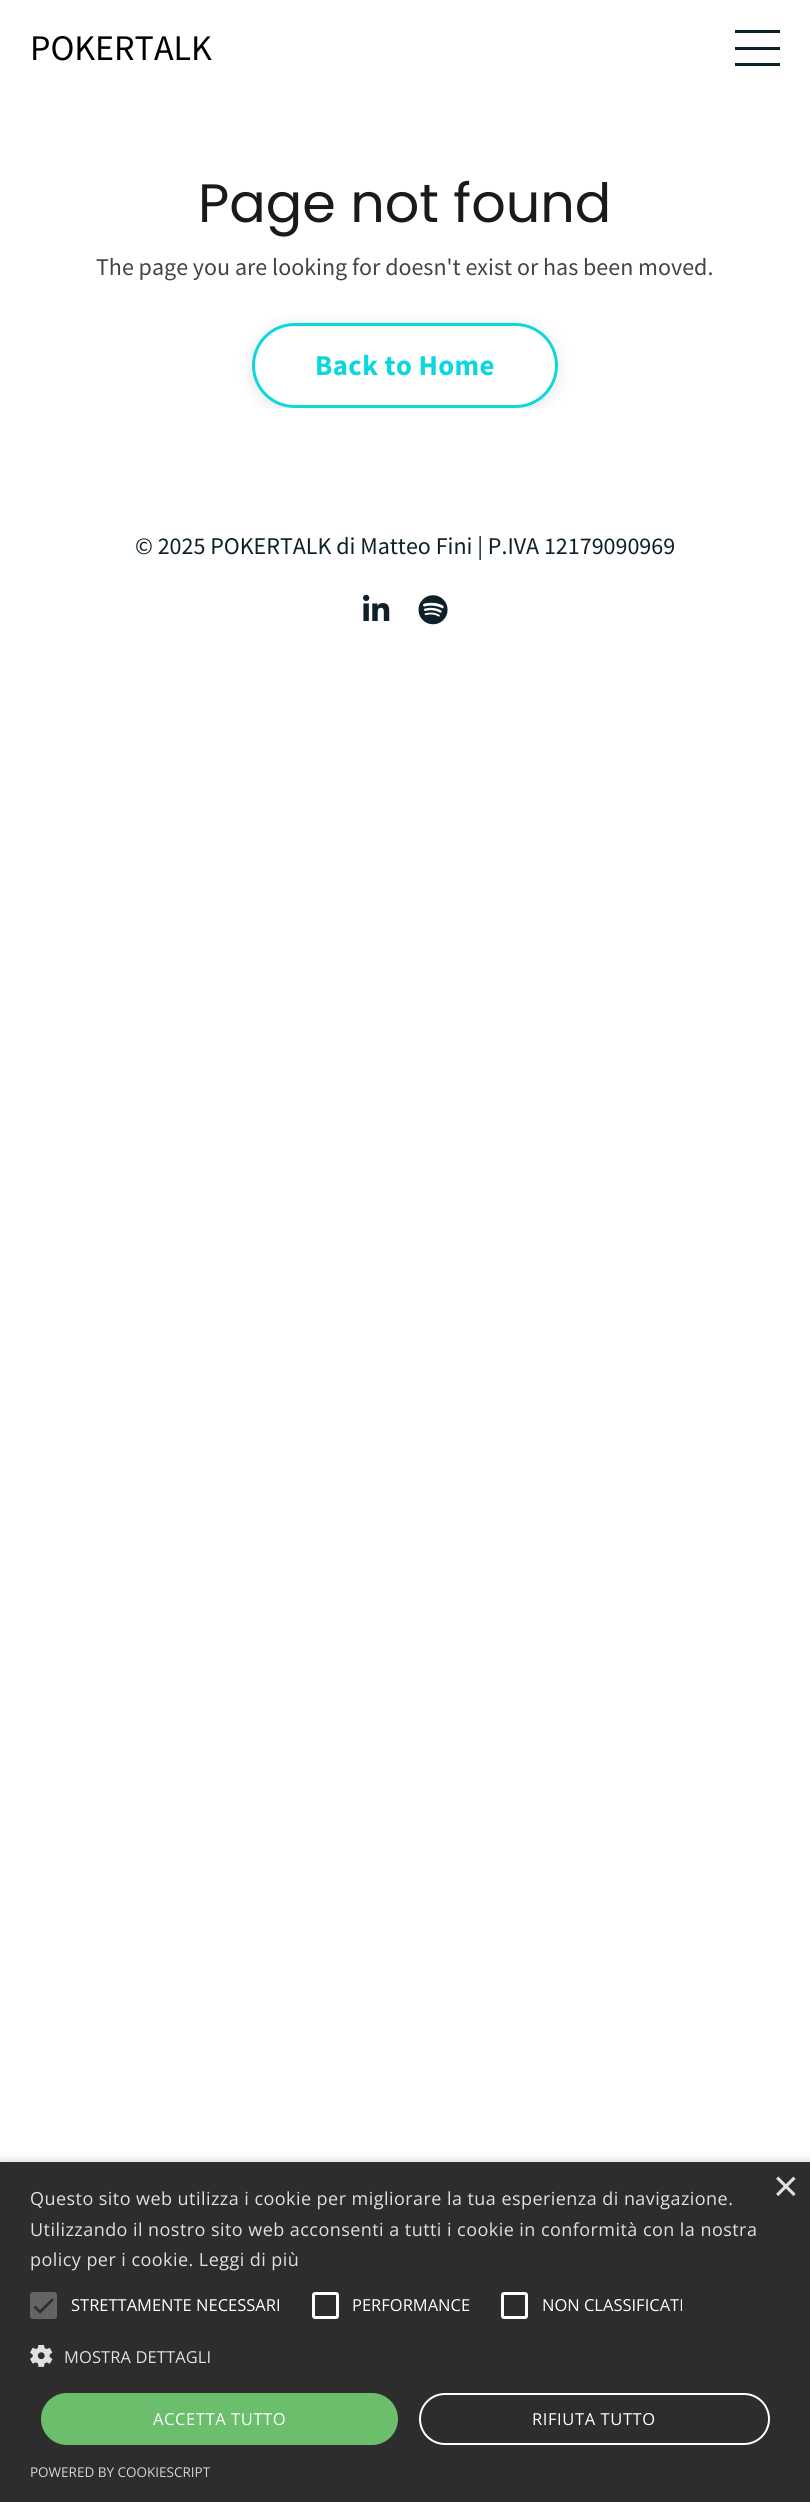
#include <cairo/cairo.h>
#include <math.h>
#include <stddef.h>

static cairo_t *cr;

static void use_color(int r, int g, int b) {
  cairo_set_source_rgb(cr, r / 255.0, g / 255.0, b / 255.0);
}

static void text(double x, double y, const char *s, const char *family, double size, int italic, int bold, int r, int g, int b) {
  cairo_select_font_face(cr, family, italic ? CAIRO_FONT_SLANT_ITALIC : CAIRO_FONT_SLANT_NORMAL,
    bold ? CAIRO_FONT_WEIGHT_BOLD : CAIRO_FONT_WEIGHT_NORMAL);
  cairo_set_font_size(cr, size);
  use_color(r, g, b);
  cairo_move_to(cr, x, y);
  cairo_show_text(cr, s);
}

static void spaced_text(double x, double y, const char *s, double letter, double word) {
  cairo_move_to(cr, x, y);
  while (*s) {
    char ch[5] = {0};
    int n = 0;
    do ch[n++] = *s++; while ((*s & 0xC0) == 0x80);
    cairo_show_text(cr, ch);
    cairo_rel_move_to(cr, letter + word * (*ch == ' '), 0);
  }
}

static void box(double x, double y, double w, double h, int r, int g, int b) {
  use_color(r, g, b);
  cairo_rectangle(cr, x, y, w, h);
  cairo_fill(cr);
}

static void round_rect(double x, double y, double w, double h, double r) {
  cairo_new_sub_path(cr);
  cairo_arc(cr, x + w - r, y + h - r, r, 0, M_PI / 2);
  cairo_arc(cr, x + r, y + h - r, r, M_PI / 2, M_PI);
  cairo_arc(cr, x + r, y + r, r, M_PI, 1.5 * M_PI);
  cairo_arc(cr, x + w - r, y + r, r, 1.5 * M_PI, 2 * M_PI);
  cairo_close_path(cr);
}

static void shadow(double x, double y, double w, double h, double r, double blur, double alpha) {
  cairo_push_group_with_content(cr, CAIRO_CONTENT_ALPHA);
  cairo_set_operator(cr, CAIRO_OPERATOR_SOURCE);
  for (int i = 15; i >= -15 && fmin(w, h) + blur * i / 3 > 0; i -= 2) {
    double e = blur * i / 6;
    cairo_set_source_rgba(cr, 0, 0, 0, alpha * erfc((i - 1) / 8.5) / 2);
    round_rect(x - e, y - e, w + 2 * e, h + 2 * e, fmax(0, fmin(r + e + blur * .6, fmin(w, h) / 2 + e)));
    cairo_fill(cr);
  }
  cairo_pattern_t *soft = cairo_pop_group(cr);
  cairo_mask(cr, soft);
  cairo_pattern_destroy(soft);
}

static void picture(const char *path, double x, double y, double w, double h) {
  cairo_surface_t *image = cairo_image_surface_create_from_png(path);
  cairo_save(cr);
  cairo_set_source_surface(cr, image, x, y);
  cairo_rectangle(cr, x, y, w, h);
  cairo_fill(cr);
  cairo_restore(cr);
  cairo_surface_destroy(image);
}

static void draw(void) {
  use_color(255, 255, 255);
  cairo_paint(cr);
  box(735, 30, 45, 3, 15, 33, 40);
  box(735, 47, 45, 3, 15, 33, 40);
  box(735, 63, 45, 3, 15, 33, 40);
  cairo_save(cr);
  round_rect(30, 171, 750, 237, 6);
  cairo_clip(cr);
  cairo_set_fill_rule(cr, CAIRO_FILL_RULE_EVEN_ODD);
  cairo_new_path(cr);
  cairo_move_to(cr, 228, 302);
  cairo_line_to(cr, 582, 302);
  cairo_line_to(cr, 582, 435);
  cairo_line_to(cr, 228, 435);
  cairo_close_path(cr);
  cairo_move_to(cr, 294.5, 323);
  cairo_line_to(cr, 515.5, 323);
  cairo_curve_to(cr, 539, 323, 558, 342, 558, 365.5);
  cairo_curve_to(cr, 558, 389, 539, 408, 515.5, 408);
  cairo_line_to(cr, 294.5, 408);
  cairo_curve_to(cr, 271, 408, 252, 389, 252, 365.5);
  cairo_curve_to(cr, 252, 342, 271, 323, 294.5, 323);
  cairo_close_path(cr);
  cairo_clip(cr);
  use_color(0, 0, 0);
  shadow(252, 326, 306, 85, 42.5, 7.5, 0.1);
  cairo_restore(cr);
  round_rect(253.5, 324.5, 303, 82, 41);
  use_color(13, 214, 221);
  cairo_set_line_width(cr, 3);
  cairo_stroke(cr);
  picture("img_01.png", 363, 594, 27, 27);
  picture("img_02.png", 418, 595, 30, 30);
  use_color(0, 0, 0);
  shadow(2, 2165, 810, 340, 0, 6, 0.35);
  box(0, 2162, 810, 340, 45, 45, 45);
  use_color(100, 100, 100);
  round_rect(30, 2292, 27, 27, 3);
  cairo_fill(cr);
  cairo_new_path(cr);
  cairo_move_to(cr, 34.5, 2306.5);
  cairo_line_to(cr, 40, 2312);
  cairo_line_to(cr, 53, 2299);
  use_color(45, 45, 45);
  cairo_set_line_width(cr, 2.7);
  cairo_stroke(cr);
  round_rect(313.5, 2293.5, 24, 24, 1.5);
  use_color(255, 255, 255);
  cairo_set_line_width(cr, 3);
  cairo_stroke(cr);
  round_rect(502.5, 2293.5, 24, 24, 1.5);
  cairo_stroke(cr);
  picture("img_03.png", 30, 2345, 23, 22);
  use_color(107, 190, 107);
  round_rect(41, 2393, 357, 52, 26);
  cairo_fill(cr);
  round_rect(420, 2394, 349, 50, 25);
  use_color(255, 255, 255);
  cairo_set_line_width(cr, 2);
  cairo_stroke(cr);
  text(30, 60, "POKERTALK", "Source Sans Pro", 36, 0, 0, 0, 0, 0);
  text(198, 222, "Page not found", "Poppins", 54, 0, 0, 26, 26, 26);
  text(96, 275, "The page you are looking for doesn't exist or has been moved.", "Source Sans Pro", 24, 0, 0, 68, 68, 68);
  cairo_select_font_face(cr, "Source Sans Pro", CAIRO_FONT_SLANT_NORMAL, CAIRO_FONT_WEIGHT_BOLD);
  cairo_set_font_size(cr, 28.75);
  use_color(13, 214, 221);
  spaced_text(315, 375, "Back to Home", 0.4, 0);
  text(135, 554, "© 2025 POKERTALK di Matteo Fini | P.IVA 12179090969", "Source Sans Pro", 24, 0, 0, 15, 33, 40);
  text(773, 2201, "×", "Liberation Sans", 44, 0, 0, 224, 224, 224);
  cairo_select_font_face(cr, "Open Sans", CAIRO_FONT_SLANT_NORMAL, CAIRO_FONT_WEIGHT_NORMAL);
  cairo_set_font_size(cr, 18);
  spaced_text(30, 2205, "Questo sito web utilizza i cookie per migliorare la tua esperienza di navigazione.", 0.45, 0);
  spaced_text(30, 2236, "Utilizzando il nostro sito web acconsenti a tutti i cookie in conformità con la nostra", 0.45, 0);
  spaced_text(30, 2266, "policy per i cookie. Leggi di più", 0.45, 0);
  text(71, 2311, "STRETTAMENTE NECESSARI", "Open Sans", 16.5, 0, 0, 255, 255, 255);
  text(352, 2311, "PERFORMANCE", "Open Sans", 16.5, 0, 0, 255, 255, 255);
  text(542, 2311, "NON CLASSIFICATI", "Open Sans", 16.5, 0, 0, 255, 255, 255);
  use_color(224, 224, 224);
  spaced_text(64, 2363, "MOSTRA DETTAGLI", 0.1, 0);
  use_color(255, 255, 255);
  spaced_text(153, 2425, "ACCETTA TUTTO", 0.6, 0);
  spaced_text(532, 2425, "RIFIUTA TUTTO", 0.6, 0);
  text(30, 2477, "POWERED BY COOKIESCRIPT", "Open Sans", 13.5, 0, 0, 213, 213, 213);
}

int main(void) {
  cairo_surface_t *surface = cairo_image_surface_create(CAIRO_FORMAT_RGB24, 810, 2502);
  cr = cairo_create(surface);
  cairo_font_options_t *options = cairo_font_options_create();
  cairo_font_options_set_hint_metrics(options, CAIRO_HINT_METRICS_OFF);
  cairo_font_options_set_hint_style(options, CAIRO_HINT_STYLE_NONE);
  cairo_set_font_options(cr, options);
  cairo_set_miter_limit(cr, 4);
  draw();
  cairo_surface_write_to_png(surface, "out.png");
  cairo_font_options_destroy(options);
  cairo_destroy(cr);
  cairo_surface_destroy(surface);
  return 0;
}
